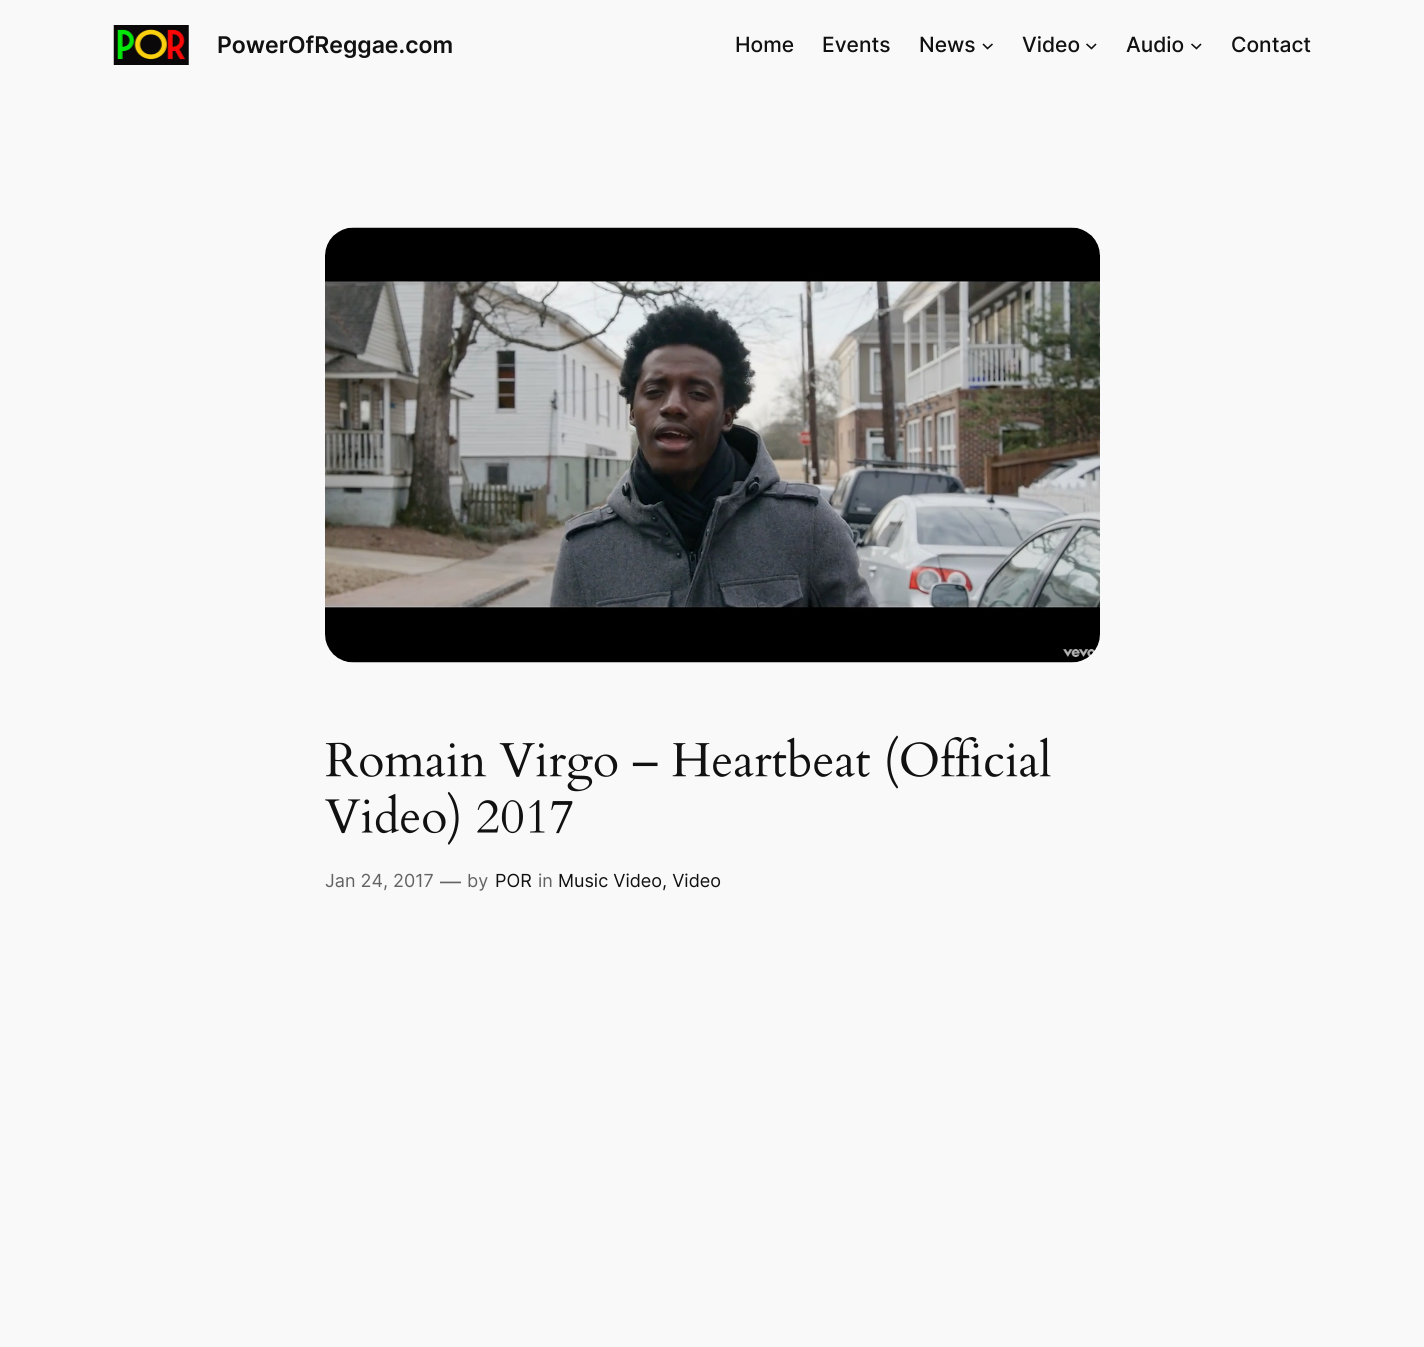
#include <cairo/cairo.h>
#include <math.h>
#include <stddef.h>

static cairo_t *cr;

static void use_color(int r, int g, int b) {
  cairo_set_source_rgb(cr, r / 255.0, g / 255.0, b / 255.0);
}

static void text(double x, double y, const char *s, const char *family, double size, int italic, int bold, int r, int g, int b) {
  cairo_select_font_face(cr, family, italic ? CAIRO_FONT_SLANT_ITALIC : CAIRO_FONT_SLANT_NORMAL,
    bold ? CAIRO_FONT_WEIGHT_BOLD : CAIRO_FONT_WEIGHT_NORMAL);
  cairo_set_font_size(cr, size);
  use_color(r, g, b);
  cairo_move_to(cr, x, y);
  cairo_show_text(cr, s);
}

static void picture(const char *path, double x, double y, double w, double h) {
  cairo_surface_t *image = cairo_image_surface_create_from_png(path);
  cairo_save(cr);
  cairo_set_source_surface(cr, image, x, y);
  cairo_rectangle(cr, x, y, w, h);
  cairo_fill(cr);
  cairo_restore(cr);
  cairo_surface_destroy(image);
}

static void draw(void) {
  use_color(249, 249, 249);
  cairo_paint(cr);
  picture("img_01.png", 113, 25, 76, 40);
  cairo_new_path(cr);
  cairo_move_to(cr, 983, 44);
  cairo_line_to(cr, 987.5, 48.5);
  cairo_line_to(cr, 992.5, 44);
  use_color(17, 17, 17);
  cairo_set_line_width(cr, 1.6);
  cairo_stroke(cr);
  cairo_new_path(cr);
  cairo_move_to(cr, 1086.5, 44);
  cairo_line_to(cr, 1091.5, 48.5);
  cairo_line_to(cr, 1096, 44);
  cairo_stroke(cr);
  cairo_new_path(cr);
  cairo_move_to(cr, 1191.5, 44);
  cairo_line_to(cr, 1196.5, 48.5);
  cairo_line_to(cr, 1201, 44);
  cairo_stroke(cr);
  picture("img_02.png", 325, 227, 775, 436);
  picture("img_03.png", 325, 735, 726, 57);
  picture("img_04.png", 325, 791, 248, 54);
  text(217, 53, "PowerOfReggae.com", "Inter SemiBold", 23, 0, 0, 17, 17, 17);
  text(735, 52, "Home", "Inter Medium", 21, 0, 0, 17, 17, 17);
  text(822, 52, "Events", "Inter Medium", 21, 0, 0, 17, 17, 17);
  text(919, 52, "News", "Inter Medium", 21, 0, 0, 17, 17, 17);
  text(1022, 52, "Video", "Inter Medium", 21, 0, 0, 17, 17, 17);
  text(1126, 52, "Audio", "Inter Medium", 21, 0, 0, 17, 17, 17);
  text(1231, 52, "Contact", "Inter Medium", 21, 0, 0, 17, 17, 17);
  text(325, 887, "Jan 24, 2017", "Inter", 18, 0, 0, 99, 99, 99);
  text(440, 889, "—", "Inter", 21, 0, 0, 99, 99, 99);
  text(467, 887, "by", "Inter", 18, 0, 0, 99, 99, 99);
  text(495, 887, "POR", "Inter", 18, 0, 0, 17, 17, 17);
  text(538, 887, "in", "Inter", 18, 0, 0, 99, 99, 99);
  text(558, 887, "Music Video, Video", "Inter", 18, 0, 0, 17, 17, 17);
}

int main(void) {
  cairo_surface_t *surface = cairo_image_surface_create(CAIRO_FORMAT_RGB24, 1424, 1347);
  cr = cairo_create(surface);
  cairo_font_options_t *options = cairo_font_options_create();
  cairo_font_options_set_hint_metrics(options, CAIRO_HINT_METRICS_OFF);
  cairo_font_options_set_hint_style(options, CAIRO_HINT_STYLE_NONE);
  cairo_set_font_options(cr, options);
  cairo_set_miter_limit(cr, 4);
  draw();
  cairo_surface_write_to_png(surface, "out.png");
  cairo_font_options_destroy(options);
  cairo_destroy(cr);
  cairo_surface_destroy(surface);
  return 0;
}
